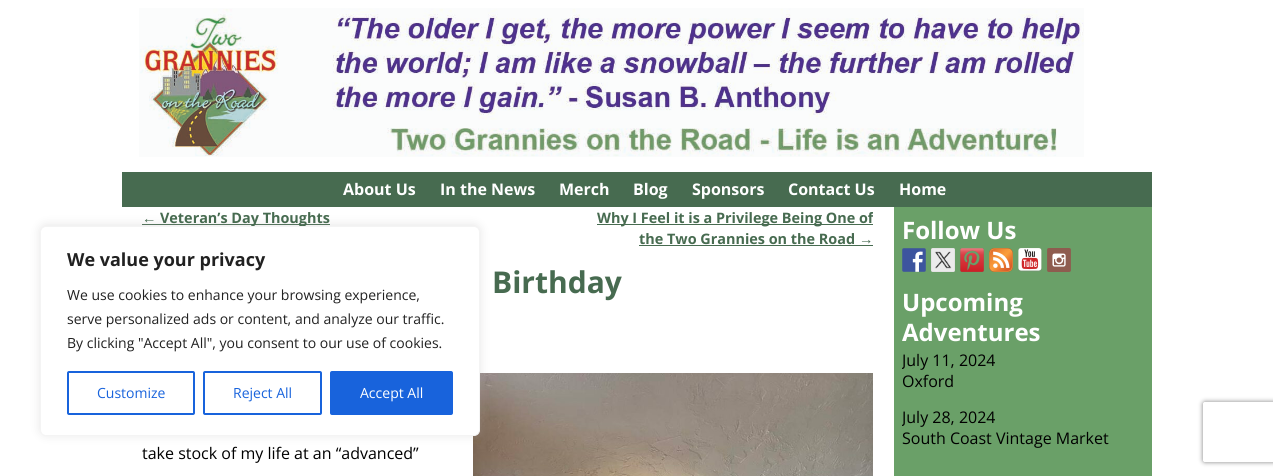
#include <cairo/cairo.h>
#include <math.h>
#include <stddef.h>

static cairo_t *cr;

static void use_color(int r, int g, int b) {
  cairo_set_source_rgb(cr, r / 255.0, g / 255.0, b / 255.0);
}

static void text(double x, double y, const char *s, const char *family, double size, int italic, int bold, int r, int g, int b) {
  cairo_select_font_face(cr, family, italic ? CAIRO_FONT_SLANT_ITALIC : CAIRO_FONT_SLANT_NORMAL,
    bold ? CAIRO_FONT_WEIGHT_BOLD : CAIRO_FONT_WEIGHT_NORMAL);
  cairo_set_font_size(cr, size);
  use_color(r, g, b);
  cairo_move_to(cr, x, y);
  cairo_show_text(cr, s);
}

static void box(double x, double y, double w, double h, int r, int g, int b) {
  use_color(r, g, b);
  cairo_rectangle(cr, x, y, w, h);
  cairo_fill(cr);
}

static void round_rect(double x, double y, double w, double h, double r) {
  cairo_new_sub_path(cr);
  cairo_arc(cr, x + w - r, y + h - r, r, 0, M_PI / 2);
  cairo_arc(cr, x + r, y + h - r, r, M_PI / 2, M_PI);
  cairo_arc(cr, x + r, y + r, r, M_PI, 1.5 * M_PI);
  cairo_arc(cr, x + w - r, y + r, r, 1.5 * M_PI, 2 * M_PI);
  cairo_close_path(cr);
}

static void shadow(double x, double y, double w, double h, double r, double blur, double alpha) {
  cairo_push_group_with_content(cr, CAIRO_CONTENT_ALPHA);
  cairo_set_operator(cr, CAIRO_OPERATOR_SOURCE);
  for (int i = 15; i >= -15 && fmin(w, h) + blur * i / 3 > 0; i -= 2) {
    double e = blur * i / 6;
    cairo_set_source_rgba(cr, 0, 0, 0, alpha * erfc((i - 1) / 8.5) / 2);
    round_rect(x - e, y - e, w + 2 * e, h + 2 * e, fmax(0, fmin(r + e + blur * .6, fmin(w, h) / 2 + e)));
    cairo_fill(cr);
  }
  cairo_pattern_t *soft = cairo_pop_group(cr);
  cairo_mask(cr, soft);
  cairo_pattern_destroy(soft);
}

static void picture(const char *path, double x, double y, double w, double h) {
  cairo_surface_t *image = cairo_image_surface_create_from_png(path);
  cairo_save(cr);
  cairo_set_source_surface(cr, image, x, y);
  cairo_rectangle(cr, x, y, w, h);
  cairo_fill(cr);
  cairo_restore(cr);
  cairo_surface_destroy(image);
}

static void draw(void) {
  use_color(255, 255, 255);
  cairo_paint(cr);
  picture("img_01.png", 139, 8, 945, 149);
  box(122, 172, 1030, 35, 71, 107, 80);
  box(142, 224, 188, 1, 71, 107, 80);
  box(597, 224, 276, 1, 71, 107, 80);
  box(639, 245, 234, 1, 71, 107, 80);
  picture("img_02.png", 473, 373, 400, 103);
  box(894, 207, 258, 269, 106, 160, 104);
  picture("img_03.png", 902, 248, 24, 24);
  picture("img_04.png", 931, 248, 24, 24);
  picture("img_05.png", 960, 248, 24, 24);
  picture("img_06.png", 989, 248, 24, 24);
  picture("img_07.png", 1018, 248, 24, 24);
  picture("img_08.png", 1047, 248, 24, 24);
  use_color(172, 171, 171);
  shadow(40, 225, 440, 210, 6, 5, 0.3);
  cairo_save(cr);
  cairo_set_fill_rule(cr, CAIRO_FILL_RULE_EVEN_ODD);
  cairo_new_path(cr);
  cairo_move_to(cr, 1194, 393);
  cairo_line_to(cr, 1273, 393);
  cairo_line_to(cr, 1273, 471);
  cairo_line_to(cr, 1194, 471);
  cairo_close_path(cr);
  cairo_move_to(cr, 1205, 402);
  cairo_line_to(cr, 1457, 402);
  cairo_curve_to(cr, 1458, 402, 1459, 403, 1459, 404);
  cairo_line_to(cr, 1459, 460);
  cairo_curve_to(cr, 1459, 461, 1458, 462, 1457, 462);
  cairo_line_to(cr, 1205, 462);
  cairo_curve_to(cr, 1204, 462, 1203, 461, 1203, 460);
  cairo_line_to(cr, 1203, 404);
  cairo_curve_to(cr, 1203, 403, 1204, 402, 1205, 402);
  cairo_close_path(cr);
  cairo_clip(cr);
  use_color(128, 128, 128);
  shadow(1203, 402, 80, 60, 2, 2.5, 1);
  cairo_restore(cr);
  text(343, 195, "About Us", "Open Sans", 16, 0, 1, 255, 255, 255);
  text(440, 195, "In the News", "Open Sans", 16, 0, 1, 255, 255, 255);
  text(559, 195, "Merch", "Open Sans", 16, 0, 1, 255, 255, 255);
  text(633, 195, "Blog", "Open Sans", 16, 0, 1, 255, 255, 255);
  text(692, 195, "Sponsors", "Open Sans", 16, 0, 1, 255, 255, 255);
  text(788, 195, "Contact Us", "Open Sans", 16, 0, 1, 255, 255, 255);
  text(899, 195, "Home", "Open Sans", 16, 0, 1, 255, 255, 255);
  text(142, 223, "←", "Liberation Sans", 14.4, 0, 0, 71, 107, 80);
  text(160, 223, "Veteran’s Day Thoughts", "Open Sans", 14.4, 0, 1, 71, 107, 80);
  cairo_save(cr);
  cairo_rectangle(cr, 142, 207, 731, 50);
  cairo_clip(cr);
  text(597, 223, "Why I Feel it is a Privilege Being One of", "Open Sans", 14.4, 0, 1, 71, 107, 80);
  cairo_restore(cr);
  text(639, 244, "the Two Grannies on the Road", "Open Sans", 14.4, 0, 1, 71, 107, 80);
  text(859, 244, "→", "Liberation Sans", 14.4, 0, 0, 71, 107, 80);
  text(492, 293, "Birthday", "Open Sans", 30, 0, 1, 71, 107, 80);
  text(142, 459, "take stock of my life at an “advanced”", "Open Sans", 16, 0, 0, 0, 0, 0);
  text(902, 239, "Follow Us", "Open Sans", 24, 0, 1, 255, 255, 255);
  text(902, 311, "Upcoming", "Open Sans", 24, 0, 1, 255, 255, 255);
  text(902, 341, "Adventures", "Open Sans", 24, 0, 1, 255, 255, 255);
  cairo_save(cr);
  cairo_rectangle(cr, 902, 287, 242, 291);
  cairo_clip(cr);
  text(902, 366, "July 11, 2024", "Open Sans", 16, 0, 0, 0, 0, 0);
  cairo_restore(cr);
  text(902, 387, "Oxford", "Open Sans", 16, 0, 0, 0, 0, 0);
  cairo_save(cr);
  cairo_rectangle(cr, 902, 287, 242, 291);
  cairo_clip(cr);
  text(902, 423, "July 28, 2024", "Open Sans", 16, 0, 0, 0, 0, 0);
  cairo_restore(cr);
  text(902, 444, "South Coast Vintage Market", "Open Sans", 16, 0, 0, 0, 0, 0);
  use_color(255, 255, 255);
  round_rect(40.5, 226.5, 439, 209, 5.5);
  cairo_fill_preserve(cr);
  use_color(244, 244, 244);
  cairo_set_line_width(cr, 1);
  cairo_stroke(cr);
  text(67, 266, "We value your privacy", "Open Sans", 18, 0, 1, 33, 33, 33);
  text(67, 300, "We use cookies to enhance your browsing experience,", "Open Sans", 14, 0, 0, 33, 33, 33);
  text(67, 324, "serve personalized ads or content, and analyze our traffic.", "Open Sans", 14, 0, 0, 33, 33, 33);
  text(67, 348, "By clicking \"Accept All\", you consent to our use of cookies.", "Open Sans", 14, 0, 0, 33, 33, 33);
  round_rect(68, 372, 126, 42, 1);
  use_color(24, 99, 220);
  cairo_set_line_width(cr, 2);
  cairo_stroke(cr);
  text(97, 398, "Customize", "Open Sans", 14, 0, 0, 24, 99, 220);
  round_rect(204, 372, 117, 42, 1);
  cairo_stroke(cr);
  text(233, 398, "Reject All", "Open Sans", 14, 0, 0, 24, 99, 220);
  round_rect(331, 372, 121, 42, 1);
  cairo_fill_preserve(cr);
  cairo_stroke(cr);
  text(360, 398, "Accept All", "Open Sans", 14, 0, 0, 255, 255, 255);
}

int main(void) {
  cairo_surface_t *surface = cairo_image_surface_create(CAIRO_FORMAT_RGB24, 1273, 476);
  cr = cairo_create(surface);
  cairo_font_options_t *options = cairo_font_options_create();
  cairo_font_options_set_hint_metrics(options, CAIRO_HINT_METRICS_OFF);
  cairo_font_options_set_hint_style(options, CAIRO_HINT_STYLE_NONE);
  cairo_set_font_options(cr, options);
  cairo_set_miter_limit(cr, 4);
  draw();
  cairo_surface_write_to_png(surface, "out.png");
  cairo_font_options_destroy(options);
  cairo_destroy(cr);
  cairo_surface_destroy(surface);
  return 0;
}
